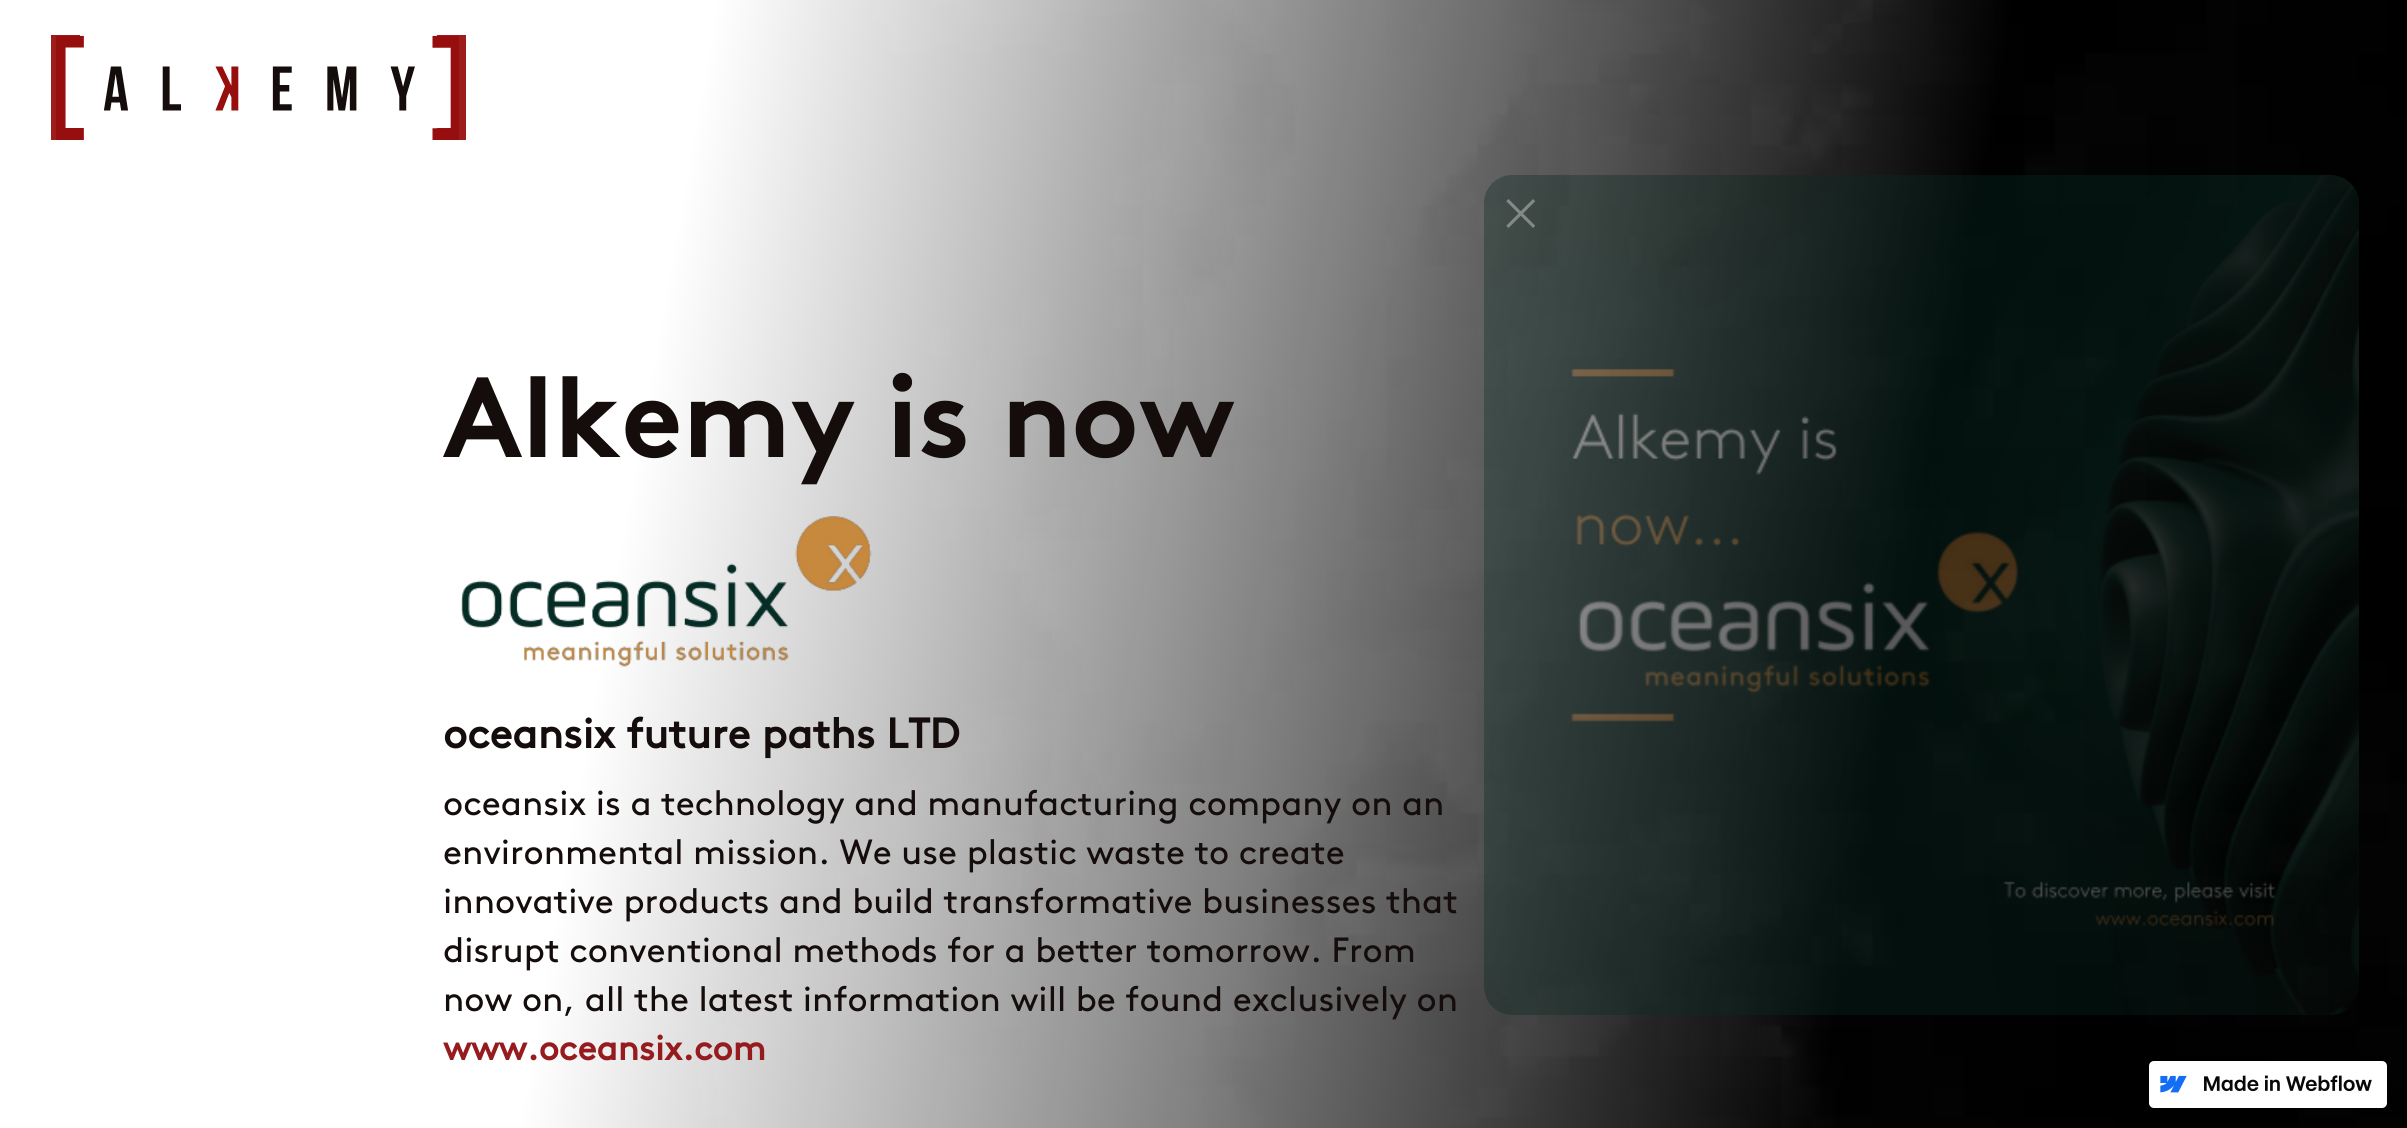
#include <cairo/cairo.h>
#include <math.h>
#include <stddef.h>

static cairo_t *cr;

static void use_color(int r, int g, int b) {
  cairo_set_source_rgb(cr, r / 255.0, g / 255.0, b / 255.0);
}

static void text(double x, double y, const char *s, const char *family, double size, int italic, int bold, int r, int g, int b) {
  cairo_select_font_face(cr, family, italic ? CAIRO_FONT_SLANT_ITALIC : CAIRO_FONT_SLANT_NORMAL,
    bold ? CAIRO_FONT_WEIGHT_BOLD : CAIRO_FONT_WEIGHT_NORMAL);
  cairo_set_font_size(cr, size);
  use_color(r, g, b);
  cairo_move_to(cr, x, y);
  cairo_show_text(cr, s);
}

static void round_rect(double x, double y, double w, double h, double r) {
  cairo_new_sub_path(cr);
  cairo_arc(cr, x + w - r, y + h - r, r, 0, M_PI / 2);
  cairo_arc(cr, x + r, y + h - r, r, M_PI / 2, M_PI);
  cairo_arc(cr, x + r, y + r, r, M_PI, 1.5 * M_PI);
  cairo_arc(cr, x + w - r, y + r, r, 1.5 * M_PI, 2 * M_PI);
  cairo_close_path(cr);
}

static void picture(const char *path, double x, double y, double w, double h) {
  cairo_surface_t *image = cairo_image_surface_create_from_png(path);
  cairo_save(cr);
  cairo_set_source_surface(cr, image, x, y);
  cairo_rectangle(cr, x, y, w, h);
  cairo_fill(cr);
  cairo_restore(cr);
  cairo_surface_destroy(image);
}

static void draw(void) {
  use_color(255, 255, 255);
  cairo_paint(cr);
  picture("img_01.png", 0, 0, 2407, 1128);
  picture("img_02.png", 56, 35, 403, 105);
  cairo_set_source_rgba(cr, 0.588, 0.059, 0.055, 0.94);
  cairo_set_fill_rule(cr, CAIRO_FILL_RULE_EVEN_ODD);
  cairo_new_path(cr);
  cairo_move_to(cr, 80, 47);
  cairo_line_to(cr, 80, 35);
  cairo_line_to(cr, 51, 35);
  cairo_line_to(cr, 51, 140);
  cairo_line_to(cr, 80, 140);
  cairo_line_to(cr, 80, 128);
  cairo_line_to(cr, 61, 128);
  cairo_line_to(cr, 61, 47);
  cairo_close_path(cr);
  cairo_fill(cr);
  cairo_new_path(cr);
  cairo_move_to(cr, 437, 47);
  cairo_line_to(cr, 437, 35);
  cairo_line_to(cr, 466, 35);
  cairo_line_to(cr, 466, 140);
  cairo_line_to(cr, 437, 140);
  cairo_line_to(cr, 437, 128);
  cairo_line_to(cr, 456, 128);
  cairo_line_to(cr, 456, 47);
  cairo_close_path(cr);
  cairo_fill(cr);
  picture("img_03.png", 461, 516, 411, 151);
  picture("img_04.png", 1484, 175, 875, 840);
  picture("img_05.png", 1506, 199, 29, 29);
  use_color(255, 255, 255);
  round_rect(2149, 1061, 238, 47, 5);
  cairo_fill(cr);
  picture("img_06.png", 2160, 1075, 27, 18);
  picture("img_07.png", 2204, 1075, 168, 17);
  text(443, 457, "Alkemy is now", "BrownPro", 113.75, 0, 1, 21, 12, 12);
  text(443, 748, "oceansix future paths LTD", "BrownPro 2", 42, 0, 1, 21, 12, 12);
  text(443, 815, "oceansix is a technology and manufacturing company on an", "BrownPro", 35, 0, 0, 21, 12, 12);
  text(443, 864, "environmental mission. We use plastic waste to create", "BrownPro", 35, 0, 0, 21, 12, 12);
  text(443, 913, "innovative products and build transformative businesses that", "BrownPro", 35, 0, 0, 21, 12, 12);
  text(443, 962, "disrupt conventional methods for a better tomorrow. From", "BrownPro", 35, 0, 0, 21, 12, 12);
  text(443, 1011, "now on, all the latest information will be found exclusively on", "BrownPro", 35, 0, 0, 21, 12, 12);
  text(443, 1060, "www.oceansix.com", "BrownPro 2", 35, 0, 1, 149, 27, 30);
}

int main(void) {
  cairo_surface_t *surface = cairo_image_surface_create(CAIRO_FORMAT_RGB24, 2407, 1128);
  cr = cairo_create(surface);
  cairo_font_options_t *options = cairo_font_options_create();
  cairo_font_options_set_hint_metrics(options, CAIRO_HINT_METRICS_OFF);
  cairo_font_options_set_hint_style(options, CAIRO_HINT_STYLE_NONE);
  cairo_set_font_options(cr, options);
  cairo_set_miter_limit(cr, 4);
  draw();
  cairo_surface_write_to_png(surface, "out.png");
  cairo_font_options_destroy(options);
  cairo_destroy(cr);
  cairo_surface_destroy(surface);
  return 0;
}
